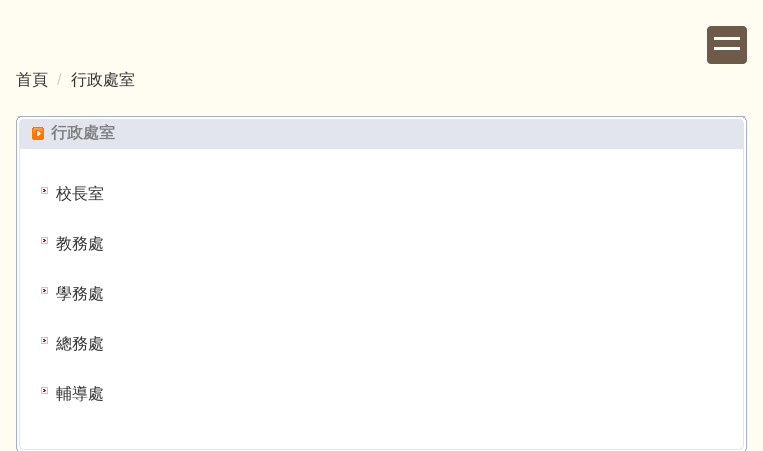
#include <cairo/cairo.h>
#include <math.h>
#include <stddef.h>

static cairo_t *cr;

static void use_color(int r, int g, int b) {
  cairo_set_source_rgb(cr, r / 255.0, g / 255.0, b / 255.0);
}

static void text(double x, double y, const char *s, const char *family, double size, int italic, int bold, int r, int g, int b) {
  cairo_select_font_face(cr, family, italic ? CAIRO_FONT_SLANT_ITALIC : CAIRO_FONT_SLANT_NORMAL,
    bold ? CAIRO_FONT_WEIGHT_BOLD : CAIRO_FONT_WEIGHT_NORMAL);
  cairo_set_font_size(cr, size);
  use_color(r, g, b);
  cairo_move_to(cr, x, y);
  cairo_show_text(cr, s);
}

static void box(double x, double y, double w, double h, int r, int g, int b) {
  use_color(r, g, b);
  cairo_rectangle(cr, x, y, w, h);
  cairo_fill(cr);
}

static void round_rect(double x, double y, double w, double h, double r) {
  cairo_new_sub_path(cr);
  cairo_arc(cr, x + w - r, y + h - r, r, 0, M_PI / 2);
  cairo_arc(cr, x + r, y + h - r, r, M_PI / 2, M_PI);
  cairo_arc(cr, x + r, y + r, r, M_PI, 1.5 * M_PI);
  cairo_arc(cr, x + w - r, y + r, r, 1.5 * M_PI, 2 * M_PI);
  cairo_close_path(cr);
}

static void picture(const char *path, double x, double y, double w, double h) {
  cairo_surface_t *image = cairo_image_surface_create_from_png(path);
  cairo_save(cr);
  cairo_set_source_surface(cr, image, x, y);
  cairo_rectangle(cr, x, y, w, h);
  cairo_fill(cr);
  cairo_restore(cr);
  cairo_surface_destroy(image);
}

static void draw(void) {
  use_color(255, 252, 242);
  cairo_paint(cr);
  use_color(110, 90, 73);
  round_rect(707, 26, 40, 38, 4);
  cairo_fill(cr);
  box(714, 37, 26, 3, 255, 255, 255);
  box(714, 47, 26, 3, 255, 255, 255);
  picture("img_01.png", 16, 116, 731, 33);
  cairo_new_path(cr);
  cairo_move_to(cr, 16, 149);
  cairo_line_to(cr, 747, 149);
  cairo_line_to(cr, 747, 449);
  cairo_curve_to(cr, 747, 451, 745, 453, 743, 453);
  cairo_line_to(cr, 20, 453);
  cairo_curve_to(cr, 18, 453, 16, 451, 16, 449);
  cairo_close_path(cr);
  cairo_fill(cr);
  picture("img_02.png", 16, 149, 731, 302);
  picture("img_03.png", 41, 187, 7, 7);
  picture("img_03.png", 41, 237, 7, 7);
  picture("img_03.png", 41, 287, 7, 7);
  picture("img_03.png", 41, 337, 7, 7);
  picture("img_03.png", 41, 387, 7, 7);
  text(16, 85, "首頁", "WenQuanYi Zen Hei Medium", 16, 0, 0, 51, 51, 51);
  text(57, 85, "/", "Liberation Sans", 16, 0, 0, 204, 204, 204);
  text(71, 85, "行政處室", "WenQuanYi Zen Hei Medium", 16, 0, 0, 51, 51, 51);
  text(51, 138, "行政處室", "WenQuanYi Zen Hei", 16, 0, 1, 128, 128, 128);
  text(56, 199, "校長室", "WenQuanYi Zen Hei Medium", 16, 0, 0, 51, 51, 51);
  text(56, 249, "教務處", "WenQuanYi Zen Hei Medium", 16, 0, 0, 51, 51, 51);
  text(56, 299, "學務處", "WenQuanYi Zen Hei Medium", 16, 0, 0, 51, 51, 51);
  text(56, 349, "總務處", "WenQuanYi Zen Hei Medium", 16, 0, 0, 51, 51, 51);
  text(56, 399, "輔導處", "WenQuanYi Zen Hei Medium", 16, 0, 0, 51, 51, 51);
}

int main(void) {
  cairo_surface_t *surface = cairo_image_surface_create(CAIRO_FORMAT_RGB24, 763, 451);
  cr = cairo_create(surface);
  cairo_font_options_t *options = cairo_font_options_create();
  cairo_font_options_set_hint_metrics(options, CAIRO_HINT_METRICS_OFF);
  cairo_font_options_set_hint_style(options, CAIRO_HINT_STYLE_NONE);
  cairo_set_font_options(cr, options);
  cairo_set_miter_limit(cr, 4);
  draw();
  cairo_surface_write_to_png(surface, "out.png");
  cairo_font_options_destroy(options);
  cairo_destroy(cr);
  cairo_surface_destroy(surface);
  return 0;
}
